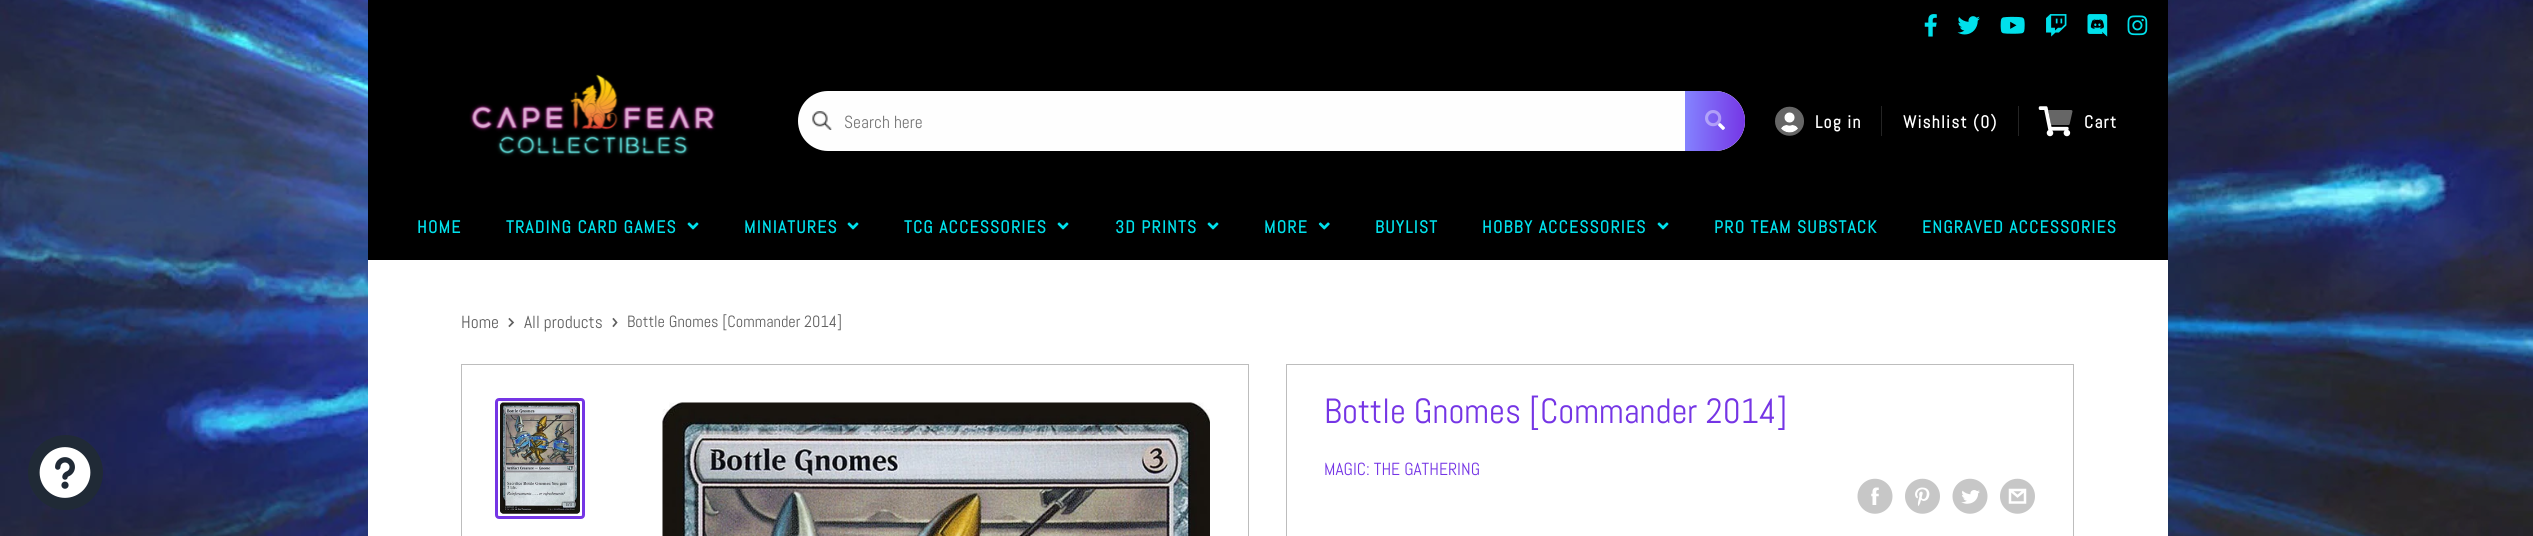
#include <cairo/cairo.h>
#include <math.h>
#include <stddef.h>

static cairo_t *cr;

static void use_color(int r, int g, int b) {
  cairo_set_source_rgb(cr, r / 255.0, g / 255.0, b / 255.0);
}

static void text(double x, double y, const char *s, const char *family, double size, int italic, int bold, int r, int g, int b) {
  cairo_select_font_face(cr, family, italic ? CAIRO_FONT_SLANT_ITALIC : CAIRO_FONT_SLANT_NORMAL,
    bold ? CAIRO_FONT_WEIGHT_BOLD : CAIRO_FONT_WEIGHT_NORMAL);
  cairo_set_font_size(cr, size);
  use_color(r, g, b);
  cairo_move_to(cr, x, y);
  cairo_show_text(cr, s);
}

static void spaced_text(double x, double y, const char *s, double letter, double word) {
  cairo_move_to(cr, x, y);
  while (*s) {
    char ch[5] = {0};
    int n = 0;
    do ch[n++] = *s++; while ((*s & 0xC0) == 0x80);
    cairo_show_text(cr, ch);
    cairo_rel_move_to(cr, letter + word * (*ch == ' '), 0);
  }
}

static void box(double x, double y, double w, double h, int r, int g, int b) {
  use_color(r, g, b);
  cairo_rectangle(cr, x, y, w, h);
  cairo_fill(cr);
}

static void round_rect(double x, double y, double w, double h, double r) {
  cairo_new_sub_path(cr);
  cairo_arc(cr, x + w - r, y + h - r, r, 0, M_PI / 2);
  cairo_arc(cr, x + r, y + h - r, r, M_PI / 2, M_PI);
  cairo_arc(cr, x + r, y + r, r, M_PI, 1.5 * M_PI);
  cairo_arc(cr, x + w - r, y + r, r, 1.5 * M_PI, 2 * M_PI);
  cairo_close_path(cr);
}

static void picture(const char *path, double x, double y, double w, double h) {
  cairo_surface_t *image = cairo_image_surface_create_from_png(path);
  cairo_save(cr);
  cairo_set_source_surface(cr, image, x, y);
  cairo_rectangle(cr, x, y, w, h);
  cairo_fill(cr);
  cairo_restore(cr);
  cairo_surface_destroy(image);
}

static void draw(void) {
  cairo_pattern_t *gradient;
  use_color(255, 255, 255);
  cairo_paint(cr);
  picture("img_02.png", 0, 0, 2533, 536);
  use_color(32, 42, 54);
  cairo_arc(cr, 65.5, 472.5, 37.5, 0, 2 * M_PI);
  cairo_fill(cr);
  picture("img_01.png", 39, 447, 52, 51);
  box(368, 260, 1800, 276, 255, 255, 255);
  box(368, 0, 1800, 260, 0, 0, 0);
  picture("img_03.png", 1924, 14, 13, 23);
  picture("img_04.png", 1957, 16, 23, 19);
  picture("img_05.png", 2000, 16, 25, 18);
  picture("img_06.png", 2046, 14, 21, 23);
  picture("img_07.png", 2087, 14, 21, 23);
  picture("img_08.png", 2127, 15, 21, 21);
  picture("img_09.png", 469, 74, 247, 83);
  use_color(254, 254, 254);
  round_rect(798, 91, 947, 60, 30);
  cairo_fill(cr);
  picture("img_10.png", 812, 111, 20, 19);
  gradient = cairo_pattern_create_linear(1746, 122, 1684, 120);
  cairo_pattern_add_color_stop_rgba(gradient, 0, 0.459, 0.208, 0.898, 1);
  cairo_pattern_add_color_stop_rgba(gradient, 1, 0.518, 0.518, 1, 1);
  cairo_set_source(cr, gradient);
  cairo_pattern_destroy(gradient);
  cairo_new_path(cr);
  cairo_move_to(cr, 1685, 91);
  cairo_line_to(cr, 1715, 91);
  cairo_curve_to(cr, 1731.5, 91, 1745, 104.5, 1745, 121);
  cairo_curve_to(cr, 1745, 137.5, 1731.5, 151, 1715, 151);
  cairo_line_to(cr, 1685, 151);
  cairo_close_path(cr);
  cairo_fill(cr);
  picture("img_12.png", 1718, 123, 7, 7);
  picture("img_11.png", 1705, 110, 17, 17);
  box(1881, 106, 1, 30, 36, 36, 36);
  picture("img_14.png", 1781, 112, 17, 21);
  picture("img_13.png", 1775, 106, 29, 30);
  box(2018, 106, 1, 30, 36, 36, 36);
  picture("img_15.png", 2038, 106, 33, 31);
  picture("img_16.png", 2048, 110, 25, 15);
  picture("img_17.png", 687, 222, 12, 8);
  picture("img_17.png", 847, 222, 12, 8);
  picture("img_17.png", 1057, 222, 12, 8);
  picture("img_17.png", 1207, 222, 12, 8);
  picture("img_18.png", 1318, 222, 12, 8);
  picture("img_17.png", 1657, 222, 12, 8);
  cairo_new_path(cr);
  cairo_move_to(cr, 509.5, 319);
  cairo_line_to(cr, 513, 322.5);
  cairo_line_to(cr, 509.5, 326);
  use_color(95, 95, 95);
  cairo_set_line_width(cr, 1.7);
  cairo_set_line_cap(cr, CAIRO_LINE_CAP_SQUARE);
  cairo_stroke(cr);
  cairo_new_path(cr);
  cairo_move_to(cr, 613.5, 319);
  cairo_line_to(cr, 616.5, 322.5);
  cairo_line_to(cr, 613.5, 326);
  cairo_stroke(cr);
  cairo_rectangle(cr, 461.5, 364.5, 787, 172);
  use_color(189, 189, 189);
  cairo_set_line_width(cr, 1);
  cairo_set_line_cap(cr, CAIRO_LINE_CAP_BUTT);
  cairo_stroke(cr);
  round_rect(496.5, 399.5, 87, 118, 2.5);
  use_color(117, 53, 229);
  cairo_set_line_width(cr, 3);
  cairo_stroke(cr);
  picture("img_19.png", 500, 402, 80, 112);
  picture("img_20.png", 662, 402, 548, 134);
  cairo_rectangle(cr, 1286.5, 364.5, 787, 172);
  use_color(189, 189, 189);
  cairo_set_line_width(cr, 1);
  cairo_stroke(cr);
  picture("img_21.png", 1857, 478, 36, 36);
  picture("img_22.png", 1905, 478, 35, 36);
  picture("img_23.png", 1952, 478, 36, 36);
  picture("img_24.png", 2000, 478, 35, 36);
  text(844, 128, "Search here", "Abel", 17.5, 0, 0, 117, 117, 117);
  cairo_select_font_face(cr, "Abel", CAIRO_FONT_SLANT_NORMAL, CAIRO_FONT_WEIGHT_BOLD);
  use_color(255, 255, 255);
  spaced_text(1815, 128, "Log in", 1.25, 0);
  spaced_text(1903, 128, "Wishlist (0)", 1.25, 0);
  spaced_text(2084, 128, "Cart", 1.25, 0);
  use_color(0, 224, 235);
  spaced_text(417, 233, "HOME", 1.25, 0);
  spaced_text(506, 233, "TRADING CARD GAMES", 1.25, 0);
  spaced_text(744, 233, "MINIATURES", 1.25, 0);
  spaced_text(904, 233, "TCG ACCESSORIES", 1.25, 0);
  spaced_text(1115, 233, "3D PRINTS", 1.25, 0);
  spaced_text(1264, 233, "MORE", 1.25, 0);
  spaced_text(1375, 233, "BUYLIST", 1.25, 0);
  spaced_text(1482, 233, "HOBBY ACCESSORIES", 1.25, 0);
  spaced_text(1714, 233, "PRO TEAM SUBSTACK", 1.25, 0);
  spaced_text(1922, 233, "ENGRAVED ACCESSORIES", 1.25, 0);
  text(461, 328, "Home", "Abel", 17.5, 0, 0, 95, 95, 95);
  text(524, 328, "All products", "Abel", 17.5, 0, 0, 95, 95, 95);
  text(627, 327, "Bottle Gnomes [Commander 2014]", "Abel", 16.25, 0, 0, 95, 95, 95);
  text(1324, 423, "Bottle Gnomes [Commander 2014]", "Abel", 35, 0, 0, 117, 53, 229);
  text(1324, 475, "MAGIC: THE GATHERING", "Abel", 17.5, 0, 0, 117, 53, 229);
}

int main(void) {
  cairo_surface_t *surface = cairo_image_surface_create(CAIRO_FORMAT_RGB24, 2533, 536);
  cr = cairo_create(surface);
  cairo_font_options_t *options = cairo_font_options_create();
  cairo_font_options_set_hint_metrics(options, CAIRO_HINT_METRICS_OFF);
  cairo_font_options_set_hint_style(options, CAIRO_HINT_STYLE_NONE);
  cairo_set_font_options(cr, options);
  cairo_set_miter_limit(cr, 4);
  draw();
  cairo_surface_write_to_png(surface, "out.png");
  cairo_font_options_destroy(options);
  cairo_destroy(cr);
  cairo_surface_destroy(surface);
  return 0;
}
